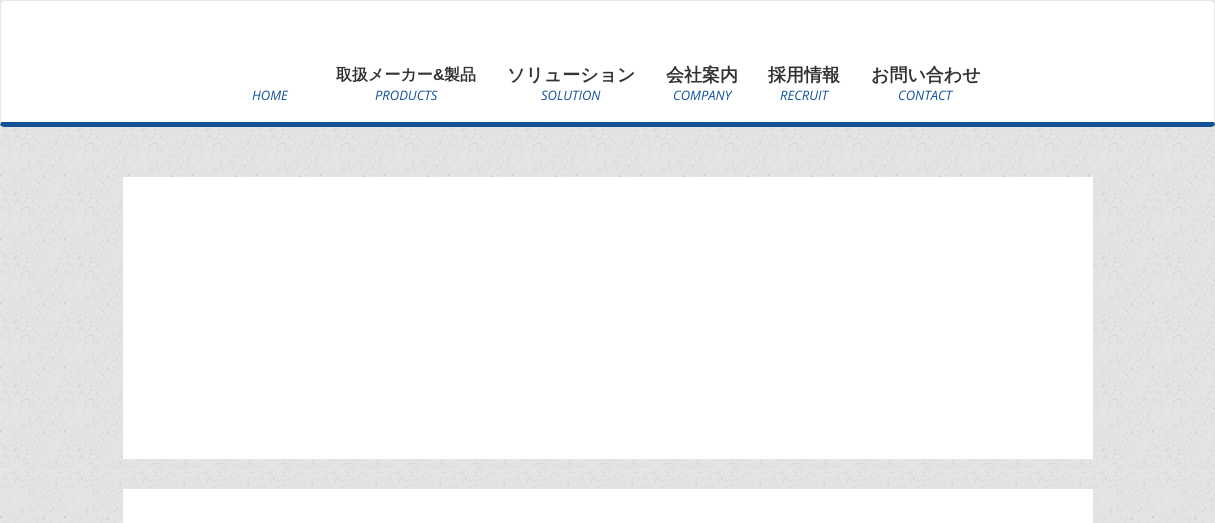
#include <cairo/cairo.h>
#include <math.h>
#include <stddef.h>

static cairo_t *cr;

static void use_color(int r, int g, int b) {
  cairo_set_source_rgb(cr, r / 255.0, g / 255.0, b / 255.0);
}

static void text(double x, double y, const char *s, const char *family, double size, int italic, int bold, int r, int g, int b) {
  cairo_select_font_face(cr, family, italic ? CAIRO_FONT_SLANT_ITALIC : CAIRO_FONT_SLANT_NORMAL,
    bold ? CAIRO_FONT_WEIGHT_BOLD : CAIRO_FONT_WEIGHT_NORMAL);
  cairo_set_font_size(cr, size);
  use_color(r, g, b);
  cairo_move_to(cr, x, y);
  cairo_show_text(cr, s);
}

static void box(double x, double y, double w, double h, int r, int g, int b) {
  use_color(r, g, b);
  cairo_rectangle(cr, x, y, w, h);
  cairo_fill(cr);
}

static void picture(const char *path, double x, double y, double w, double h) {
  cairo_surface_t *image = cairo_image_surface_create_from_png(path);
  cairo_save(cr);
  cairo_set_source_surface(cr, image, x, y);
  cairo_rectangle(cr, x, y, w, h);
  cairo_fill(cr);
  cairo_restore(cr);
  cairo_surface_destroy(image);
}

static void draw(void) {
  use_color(255, 255, 255);
  cairo_paint(cr);
  picture("img_01.png", 0, 0, 1215, 523);
  use_color(255, 255, 255);
  cairo_new_path(cr);
  cairo_move_to(cr, 4, 1);
  cairo_line_to(cr, 1211, 1);
  cairo_curve_to(cr, 1213, 1, 1214, 2, 1214, 4);
  cairo_line_to(cr, 1214, 122);
  cairo_line_to(cr, 1, 122);
  cairo_line_to(cr, 1, 4);
  cairo_curve_to(cr, 1, 2, 2, 1, 4, 1);
  cairo_close_path(cr);
  cairo_fill(cr);
  use_color(231, 231, 231);
  cairo_new_path(cr);
  cairo_move_to(cr, 4, 0);
  cairo_line_to(cr, 1, 1);
  cairo_line_to(cr, 2, 2);
  cairo_line_to(cr, 4, 1);
  cairo_line_to(cr, 1211, 1);
  cairo_line_to(cr, 1213, 2);
  cairo_line_to(cr, 1214, 1);
  cairo_line_to(cr, 1211, 0);
  cairo_close_path(cr);
  cairo_fill(cr);
  cairo_new_path(cr);
  cairo_move_to(cr, 1215, 123);
  cairo_line_to(cr, 1215, 4);
  cairo_line_to(cr, 1214, 1);
  cairo_line_to(cr, 1213, 2);
  cairo_line_to(cr, 1214, 4);
  cairo_line_to(cr, 1214, 122);
  cairo_line_to(cr, 1215, 125);
  cairo_close_path(cr);
  cairo_fill(cr);
  use_color(20, 82, 151);
  cairo_new_path(cr);
  cairo_move_to(cr, 4, 127);
  cairo_line_to(cr, 1211, 127);
  cairo_curve_to(cr, 1212, 127, 1214, 126, 1215, 125);
  cairo_line_to(cr, 1214, 122);
  cairo_line_to(cr, 1, 122);
  cairo_line_to(cr, 0, 125);
  cairo_curve_to(cr, 1, 126, 3, 127, 4, 127);
  cairo_close_path(cr);
  cairo_fill(cr);
  use_color(231, 231, 231);
  cairo_new_path(cr);
  cairo_move_to(cr, 0, 4);
  cairo_line_to(cr, 0, 123);
  cairo_line_to(cr, 0, 125);
  cairo_line_to(cr, 1, 122);
  cairo_line_to(cr, 1, 4);
  cairo_line_to(cr, 2, 2);
  cairo_line_to(cr, 1, 1);
  cairo_close_path(cr);
  cairo_fill(cr);
  box(123, 177, 970, 282, 255, 255, 255);
  box(123, 489, 970, 34, 255, 255, 255);
  text(252, 100, "HOME", "Open Sans", 13, 1, 0, 20, 82, 151);
  text(336, 80, "取扱メーカー", "WenQuanYi Zen Hei", 16, 0, 1, 51, 51, 51);
  text(433, 80, "&", "Liberation Sans", 16, 0, 1, 51, 51, 51);
  text(444, 80, "製品", "WenQuanYi Zen Hei", 16, 0, 1, 51, 51, 51);
  text(375, 100, "PRODUCTS", "Open Sans", 13, 1, 0, 20, 82, 151);
  text(507, 81, "ソリューション", "WenQuanYi Zen Hei", 18, 0, 1, 51, 51, 51);
  text(541, 100, "SOLUTION", "Open Sans", 13, 1, 0, 20, 82, 151);
  text(666, 81, "会社案内", "WenQuanYi Zen Hei", 18, 0, 1, 51, 51, 51);
  text(673, 100, "COMPANY", "Open Sans", 13, 1, 0, 20, 82, 151);
  text(768, 81, "採用情報", "WenQuanYi Zen Hei", 18, 0, 1, 51, 51, 51);
  text(780, 100, "RECRUIT", "Open Sans", 13, 1, 0, 20, 82, 151);
  text(871, 81, "お問い合わせ", "WenQuanYi Zen Hei", 18, 0, 1, 51, 51, 51);
  text(898, 100, "CONTACT", "Open Sans", 13, 1, 0, 20, 82, 151);
}

int main(void) {
  cairo_surface_t *surface = cairo_image_surface_create(CAIRO_FORMAT_RGB24, 1215, 523);
  cr = cairo_create(surface);
  cairo_font_options_t *options = cairo_font_options_create();
  cairo_font_options_set_hint_metrics(options, CAIRO_HINT_METRICS_OFF);
  cairo_font_options_set_hint_style(options, CAIRO_HINT_STYLE_NONE);
  cairo_set_font_options(cr, options);
  cairo_set_miter_limit(cr, 4);
  draw();
  cairo_surface_write_to_png(surface, "out.png");
  cairo_font_options_destroy(options);
  cairo_destroy(cr);
  cairo_surface_destroy(surface);
  return 0;
}
